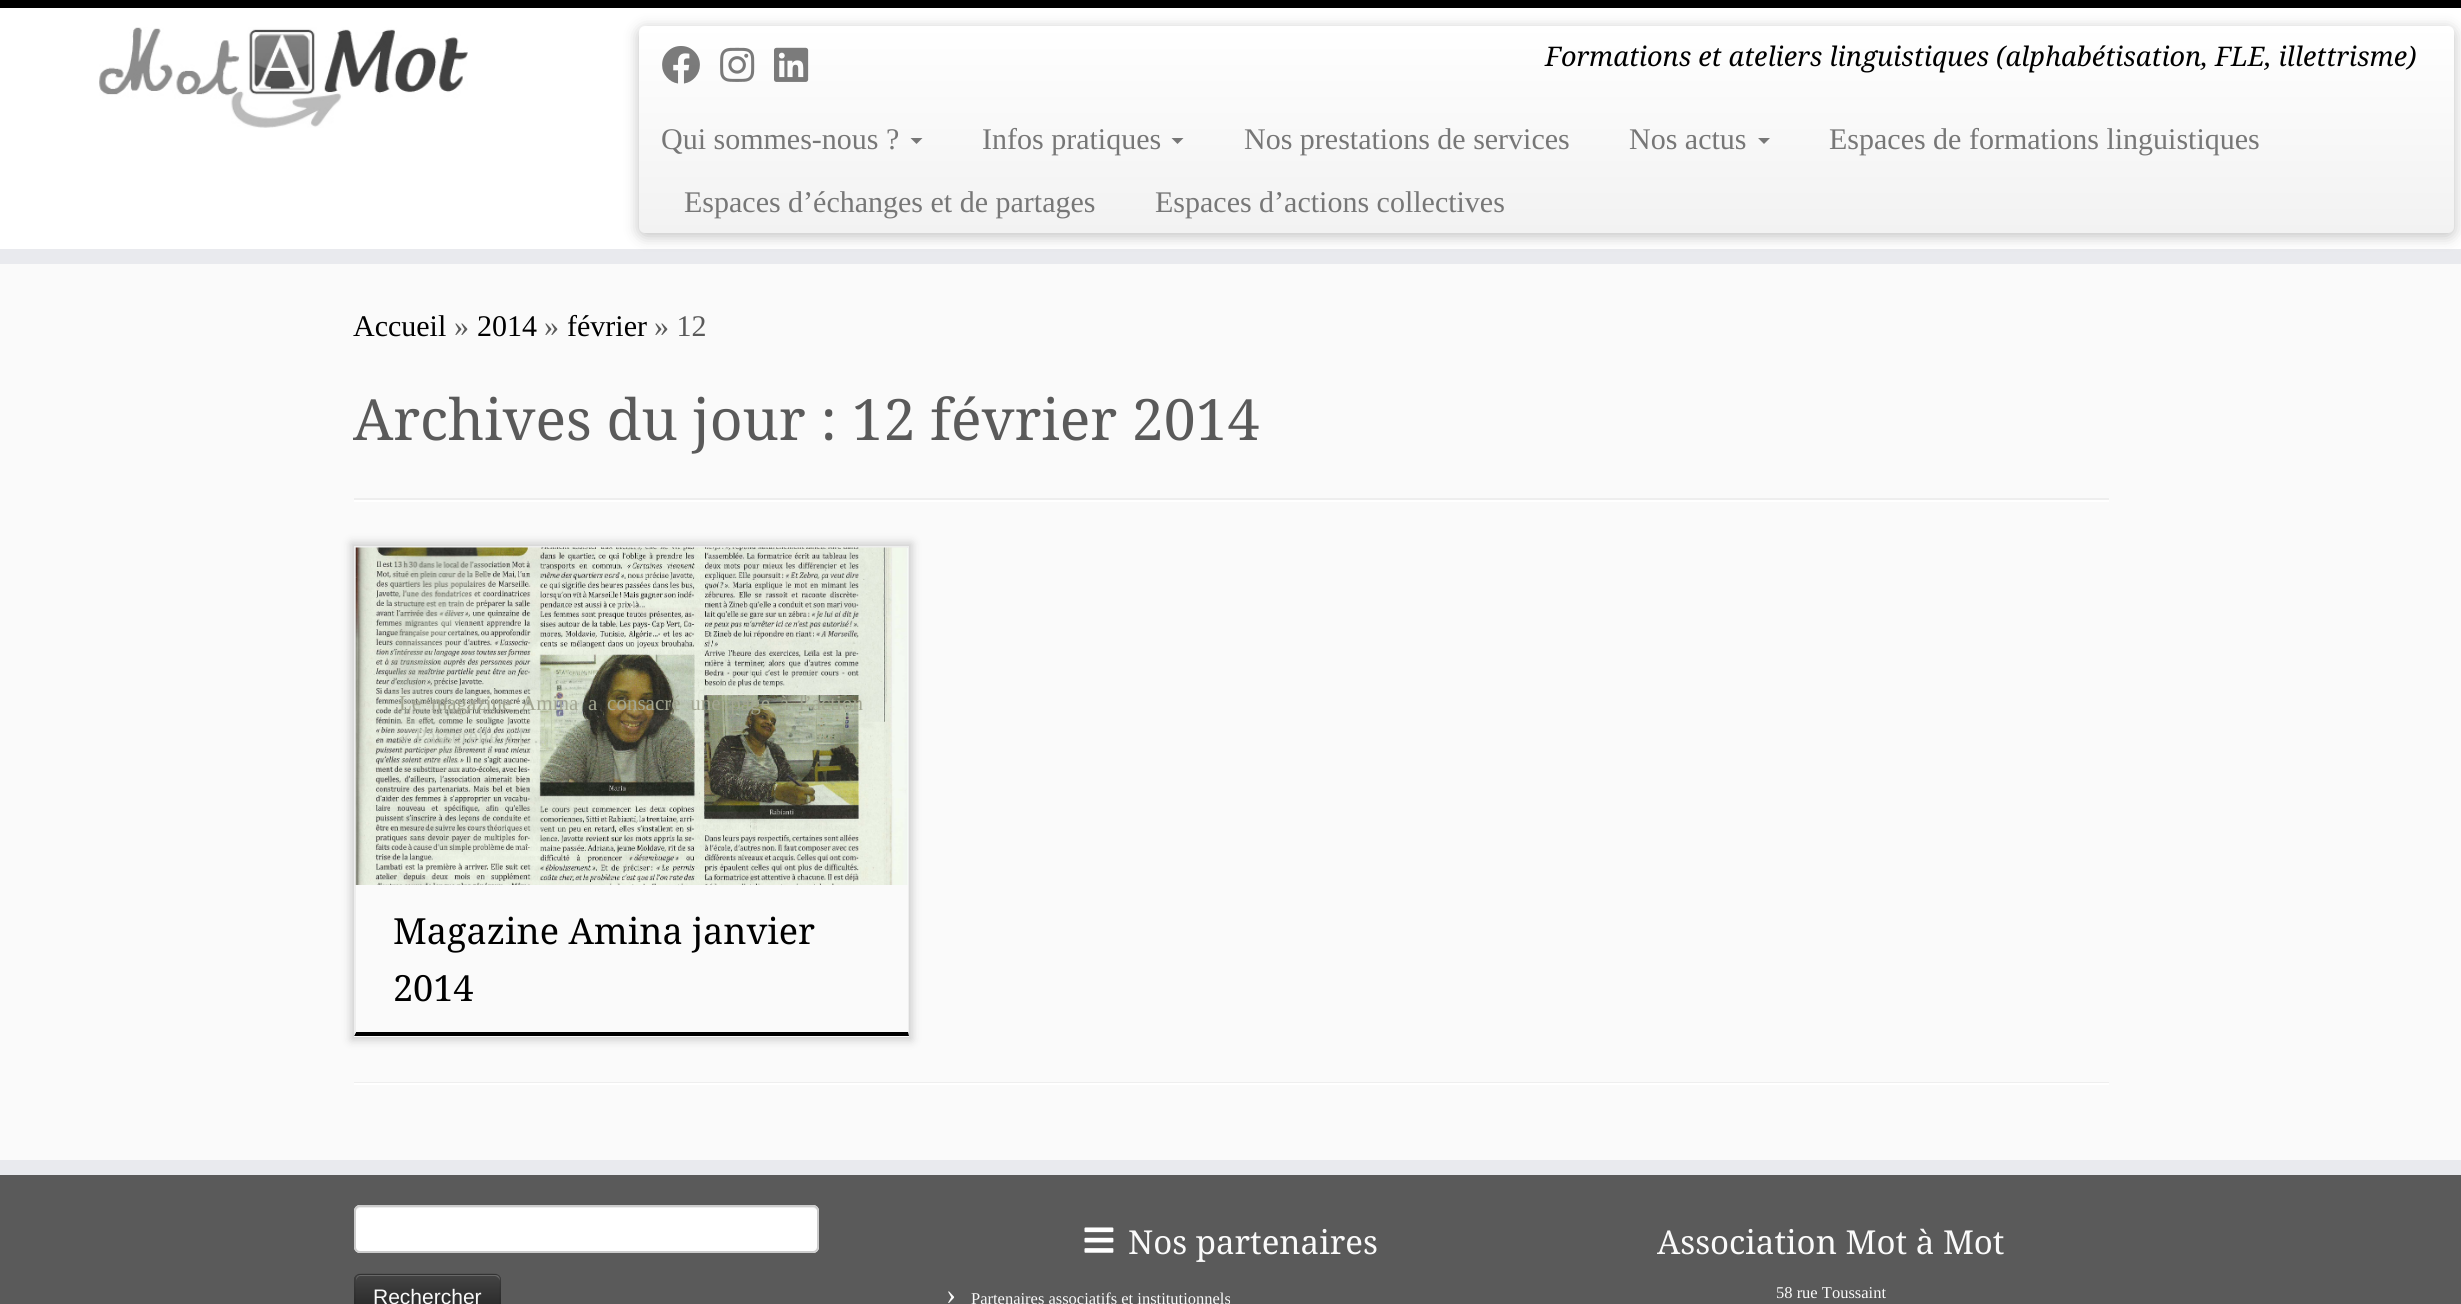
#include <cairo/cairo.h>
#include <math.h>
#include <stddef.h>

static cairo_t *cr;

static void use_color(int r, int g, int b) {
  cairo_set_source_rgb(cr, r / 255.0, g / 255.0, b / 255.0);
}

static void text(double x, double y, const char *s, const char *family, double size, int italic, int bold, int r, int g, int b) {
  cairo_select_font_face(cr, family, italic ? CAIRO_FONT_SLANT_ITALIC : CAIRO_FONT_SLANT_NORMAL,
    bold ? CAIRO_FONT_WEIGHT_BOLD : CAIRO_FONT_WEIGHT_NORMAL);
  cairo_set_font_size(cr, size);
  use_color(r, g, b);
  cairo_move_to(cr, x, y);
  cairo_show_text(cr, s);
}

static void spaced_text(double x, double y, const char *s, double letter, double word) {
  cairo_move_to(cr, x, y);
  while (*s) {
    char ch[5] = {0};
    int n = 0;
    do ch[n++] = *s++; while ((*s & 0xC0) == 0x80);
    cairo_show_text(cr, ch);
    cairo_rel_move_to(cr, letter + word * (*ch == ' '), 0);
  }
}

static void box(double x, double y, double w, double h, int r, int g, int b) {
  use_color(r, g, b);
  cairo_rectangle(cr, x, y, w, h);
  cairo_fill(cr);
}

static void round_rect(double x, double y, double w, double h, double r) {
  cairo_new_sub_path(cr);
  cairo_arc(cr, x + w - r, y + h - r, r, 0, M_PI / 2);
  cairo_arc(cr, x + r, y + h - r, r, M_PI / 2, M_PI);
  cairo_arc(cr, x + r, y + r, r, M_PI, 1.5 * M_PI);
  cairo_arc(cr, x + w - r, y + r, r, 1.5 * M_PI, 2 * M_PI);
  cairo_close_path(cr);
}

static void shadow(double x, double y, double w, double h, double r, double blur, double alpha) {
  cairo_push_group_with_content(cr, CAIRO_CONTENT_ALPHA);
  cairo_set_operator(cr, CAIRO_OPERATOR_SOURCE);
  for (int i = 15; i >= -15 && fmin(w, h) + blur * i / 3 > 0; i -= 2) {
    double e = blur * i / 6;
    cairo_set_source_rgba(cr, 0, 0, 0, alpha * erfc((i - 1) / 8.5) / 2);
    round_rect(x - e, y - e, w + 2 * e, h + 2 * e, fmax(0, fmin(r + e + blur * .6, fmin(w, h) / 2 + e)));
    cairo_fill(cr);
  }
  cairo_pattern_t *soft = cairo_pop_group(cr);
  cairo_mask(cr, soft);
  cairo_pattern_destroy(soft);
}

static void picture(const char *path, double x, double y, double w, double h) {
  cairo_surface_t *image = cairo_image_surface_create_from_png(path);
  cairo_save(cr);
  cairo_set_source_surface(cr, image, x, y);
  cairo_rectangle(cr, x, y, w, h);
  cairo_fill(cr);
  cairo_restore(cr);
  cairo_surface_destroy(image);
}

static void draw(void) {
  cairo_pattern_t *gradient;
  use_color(250, 250, 250);
  cairo_paint(cr);
  box(0, 8, 2461, 241, 255, 255, 255);
  box(0, 0, 2461, 8, 0, 0, 0);
  box(0, 249, 2461, 15, 233, 234, 238);
  picture("img_01.png", 99, 27, 369, 101);
  use_color(0, 0, 0);
  shadow(639, 29, 1815, 207, 6, 7.5, 0.25);
  gradient = cairo_pattern_create_linear(1547, 25, 1547, 233);
  cairo_pattern_add_color_stop_rgba(gradient, 0, 1, 1, 1, 1);
  cairo_pattern_add_color_stop_rgba(gradient, 1, 0.949, 0.949, 0.949, 1);
  cairo_set_source(cr, gradient);
  cairo_pattern_destroy(gradient);
  round_rect(639, 26, 1815, 207, 6);
  cairo_fill(cr);
  picture("img_02.png", 662, 46, 38, 38);
  picture("img_03.png", 720, 47, 35, 35);
  picture("img_04.png", 774, 47, 35, 35);
  use_color(119, 119, 119);
  cairo_new_path(cr);
  cairo_move_to(cr, 910.5, 138);
  cairo_line_to(cr, 922.5, 138);
  cairo_line_to(cr, 916.5, 144);
  cairo_close_path(cr);
  cairo_fill(cr);
  cairo_new_path(cr);
  cairo_move_to(cr, 1171.5, 138);
  cairo_line_to(cr, 1183.5, 138);
  cairo_line_to(cr, 1177.5, 144);
  cairo_close_path(cr);
  cairo_fill(cr);
  cairo_new_path(cr);
  cairo_move_to(cr, 1758, 138);
  cairo_line_to(cr, 1770, 138);
  cairo_line_to(cr, 1764, 144);
  cairo_close_path(cr);
  cairo_fill(cr);
  box(354, 498, 1755, 2, 238, 238, 238);
  box(354, 500, 1755, 2, 255, 255, 255);
  cairo_save(cr);
  cairo_set_fill_rule(cr, CAIRO_FILL_RULE_EVEN_ODD);
  cairo_new_path(cr);
  cairo_move_to(cr, 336, 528);
  cairo_line_to(cr, 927, 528);
  cairo_line_to(cr, 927, 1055);
  cairo_line_to(cr, 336, 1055);
  cairo_close_path(cr);
  cairo_move_to(cr, 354, 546);
  cairo_line_to(cr, 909, 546);
  cairo_line_to(cr, 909, 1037);
  cairo_line_to(cr, 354, 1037);
  cairo_close_path(cr);
  cairo_clip(cr);
  use_color(204, 204, 204);
  shadow(351, 543, 561, 497, 0, 4.5, 1);
  cairo_restore(cr);
  box(354, 546, 555, 2, 238, 238, 238);
  cairo_new_path(cr);
  cairo_move_to(cr, 909, 546);
  cairo_line_to(cr, 909, 1036);
  cairo_line_to(cr, 908, 1032);
  cairo_line_to(cr, 908, 548);
  cairo_close_path(cr);
  cairo_fill(cr);
  use_color(0, 0, 0);
  cairo_new_path(cr);
  cairo_move_to(cr, 909, 1036);
  cairo_line_to(cr, 354, 1036);
  cairo_line_to(cr, 356, 1032);
  cairo_line_to(cr, 908, 1032);
  cairo_close_path(cr);
  cairo_fill(cr);
  use_color(238, 238, 238);
  cairo_new_path(cr);
  cairo_move_to(cr, 354, 1036);
  cairo_line_to(cr, 354, 546);
  cairo_line_to(cr, 356, 548);
  cairo_line_to(cr, 356, 1032);
  cairo_close_path(cr);
  cairo_fill(cr);
  picture("img_05.png", 355, 547, 553, 338);
  box(354, 1082, 1755, 1, 238, 238, 238);
  box(354, 1083, 1755, 2, 255, 255, 255);
  box(0, 1175, 2461, 129, 90, 90, 90);
  box(0, 1160, 2461, 15, 233, 234, 238);
  use_color(255, 255, 255);
  round_rect(354, 1205, 465, 48, 6);
  cairo_fill(cr);
  use_color(236, 236, 236);
  cairo_new_path(cr);
  cairo_move_to(cr, 360, 1208);
  cairo_line_to(cr, 813, 1208);
  cairo_curve_to(cr, 815, 1208, 818, 1210, 818, 1212);
  cairo_curve_to(cr, 818, 1209, 816, 1206, 813, 1206);
  cairo_line_to(cr, 361, 1206);
  cairo_curve_to(cr, 358, 1206, 356, 1209, 356, 1212);
  cairo_curve_to(cr, 356, 1210, 358, 1208, 360, 1208);
  cairo_close_path(cr);
  cairo_fill(cr);
  round_rect(355, 1206, 463, 46, 5);
  use_color(204, 204, 204);
  cairo_stroke(cr);
  use_color(54, 54, 54);
  round_rect(354, 1274, 147, 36, 6);
  cairo_fill(cr);
  cairo_save(cr);
  round_rect(354, 1274, 147, 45, 6);
  cairo_clip(cr);
  gradient = cairo_pattern_create_linear(428, 1275, 428, 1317);
  cairo_pattern_add_color_stop_rgba(gradient, 0, 0.267, 0.267, 0.267, 1);
  cairo_pattern_add_color_stop_rgba(gradient, 1, 0.133, 0.133, 0.133, 1);
  cairo_set_source(cr, gradient);
  cairo_pattern_destroy(gradient);
  cairo_rectangle(cr, 354, 1275, 147, 29);
  cairo_fill(cr);
  cairo_restore(cr);
  cairo_set_source_rgba(cr, 1, 1, 1, 0.2);
  cairo_new_path(cr);
  cairo_move_to(cr, 360, 1276);
  cairo_line_to(cr, 495, 1276);
  cairo_curve_to(cr, 497, 1276, 500, 1279, 500, 1281);
  cairo_line_to(cr, 500, 1280);
  cairo_curve_to(cr, 500, 1277, 498, 1275, 495, 1275);
  cairo_line_to(cr, 361, 1275);
  cairo_curve_to(cr, 358, 1275, 356, 1277, 356, 1280);
  cairo_line_to(cr, 356, 1281);
  cairo_curve_to(cr, 356, 1279, 358, 1276, 360, 1276);
  cairo_close_path(cr);
  cairo_fill(cr);
  cairo_new_path(cr);
  cairo_move_to(cr, 356.5, 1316);
  cairo_curve_to(cr, 353, 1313, 355, 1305, 355, 1301.5);
  cairo_curve_to(cr, 355, 1269.5, 349, 1274, 382.5, 1274);
  cairo_line_to(cr, 472.5, 1274);
  cairo_curve_to(cr, 506, 1274, 500, 1269.5, 500, 1301.5);
  cairo_curve_to(cr, 500, 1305, 502, 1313, 498.5, 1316);
  cairo_set_source_rgba(cr, 0, 0, 0, 0.1);
  cairo_set_line_width(cr, 1.5);
  cairo_stroke(cr);
  picture("img_06.png", 1084, 1227, 30, 26);
  text(1545, 66, "Formations et ateliers linguistiques (alphabétisation, FLE, illettrisme)", "Noto Serif", 27, 1, 0, 0, 0, 0);
  text(661, 149, "Qui sommes-nous ?", "Liberation Serif", 30, 0, 0, 119, 119, 119);
  text(982, 149, "Infos pratiques", "Liberation Serif", 30, 0, 0, 119, 119, 119);
  text(1244, 149, "Nos prestations de services", "Liberation Serif", 30, 0, 0, 119, 119, 119);
  text(1629, 149, "Nos actus", "Liberation Serif", 30, 0, 0, 119, 119, 119);
  text(1829, 149, "Espaces de formations linguistiques", "Liberation Serif", 30, 0, 0, 119, 119, 119);
  text(684, 212, "Espaces d’échanges et de partages", "Liberation Serif", 30, 0, 0, 119, 119, 119);
  text(1155, 212, "Espaces d’actions collectives", "Liberation Serif", 30, 0, 0, 119, 119, 119);
  text(353, 336, "Accueil", "Liberation Serif", 30, 0, 0, 0, 0, 0);
  text(454, 336, "»", "Liberation Serif", 30, 0, 0, 90, 90, 90);
  text(477, 336, "2014", "Liberation Serif", 30, 0, 0, 0, 0, 0);
  text(544, 336, "»", "Liberation Serif", 30, 0, 0, 90, 90, 90);
  text(567, 336, "février", "Liberation Serif", 30, 0, 0, 0, 0, 0);
  text(654, 336, "» 12", "Liberation Serif", 30, 0, 0, 90, 90, 90);
  text(353, 440, "Archives du jour : 12 février 2014", "Noto Serif", 57, 0, 0, 90, 90, 90);
  cairo_select_font_face(cr, "Liberation Serif", CAIRO_FONT_SLANT_NORMAL, CAIRO_FONT_WEIGHT_NORMAL);
  cairo_set_font_size(cr, 21);
  use_color(163, 166, 146);
  spaced_text(399, 710, "Le magazine Amina a consacré une page à l’action", 0, 4.5);
  text(399, 743, "« Passerelle à […", "Liberation Serif", 21, 0, 0, 202, 208, 195);
  text(393, 944, "Magazine Amina janvier", "Noto Serif", 36, 0, 0, 0, 0, 0);
  text(393, 1001, "2014", "Noto Serif", 36, 0, 0, 0, 0, 0);
  text(373, 1304, "Rechercher", "Liberation Sans", 21, 0, 0, 250, 250, 250);
  text(1128, 1254, "Nos partenaires", "Noto Serif", 33, 0, 0, 250, 250, 250);
  text(946, 1304, "›", "Liberation Serif", 30, 0, 0, 250, 250, 250);
  text(971, 1304, "Partenaires associatifs et institutionnels", "Liberation Serif", 16.5, 0, 0, 250, 250, 250);
  text(1657, 1254, "Association Mot à Mot", "Noto Serif", 33, 0, 0, 250, 250, 250);
  text(1776, 1298, "58 rue Toussaint", "Liberation Serif", 16.5, 0, 0, 250, 250, 250);
}

int main(void) {
  cairo_surface_t *surface = cairo_image_surface_create(CAIRO_FORMAT_RGB24, 2461, 1304);
  cr = cairo_create(surface);
  cairo_font_options_t *options = cairo_font_options_create();
  cairo_font_options_set_hint_metrics(options, CAIRO_HINT_METRICS_OFF);
  cairo_font_options_set_hint_style(options, CAIRO_HINT_STYLE_NONE);
  cairo_set_font_options(cr, options);
  cairo_set_miter_limit(cr, 4);
  draw();
  cairo_surface_write_to_png(surface, "out.png");
  cairo_font_options_destroy(options);
  cairo_destroy(cr);
  cairo_surface_destroy(surface);
  return 0;
}
